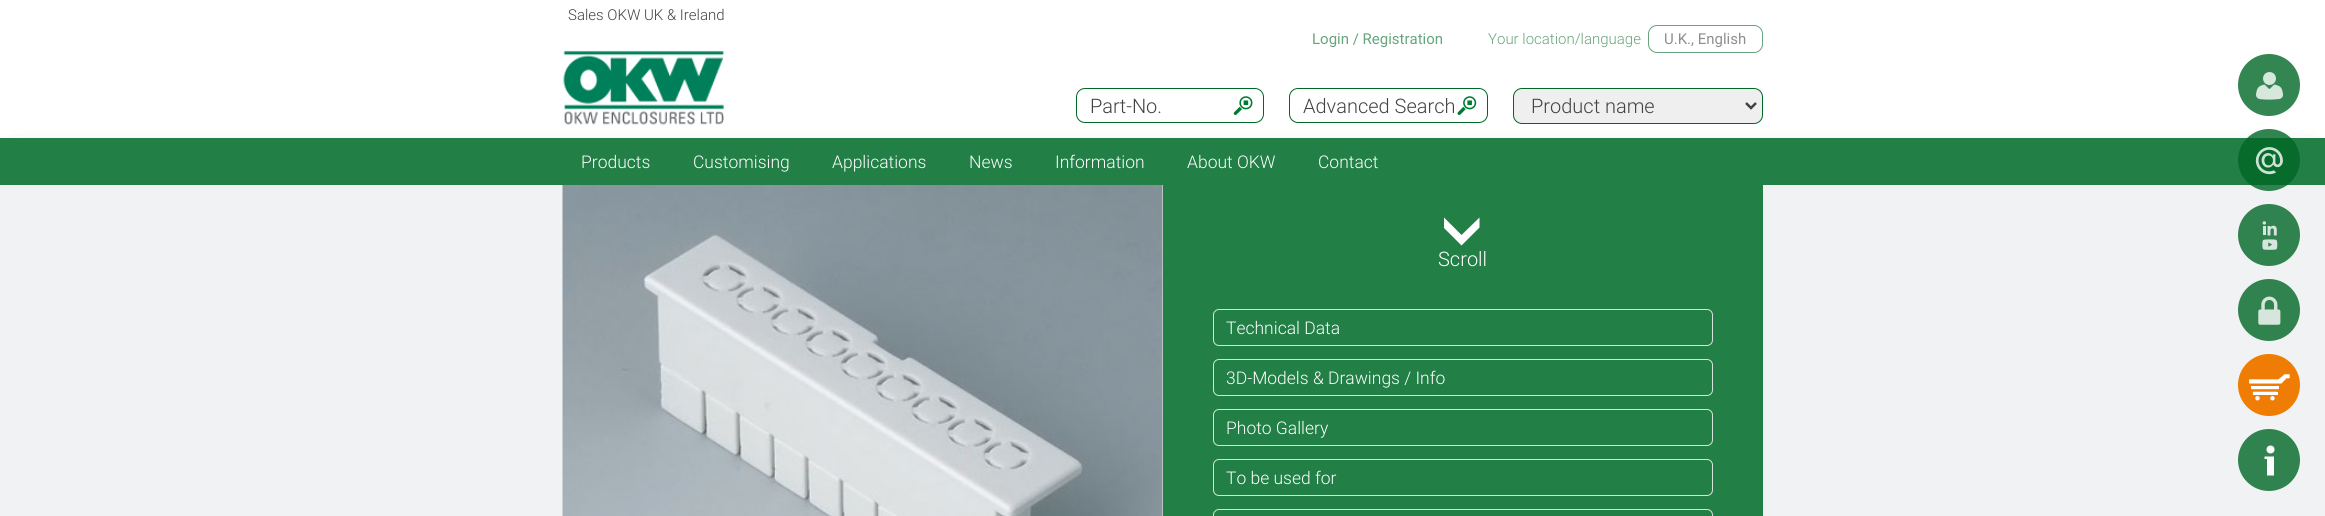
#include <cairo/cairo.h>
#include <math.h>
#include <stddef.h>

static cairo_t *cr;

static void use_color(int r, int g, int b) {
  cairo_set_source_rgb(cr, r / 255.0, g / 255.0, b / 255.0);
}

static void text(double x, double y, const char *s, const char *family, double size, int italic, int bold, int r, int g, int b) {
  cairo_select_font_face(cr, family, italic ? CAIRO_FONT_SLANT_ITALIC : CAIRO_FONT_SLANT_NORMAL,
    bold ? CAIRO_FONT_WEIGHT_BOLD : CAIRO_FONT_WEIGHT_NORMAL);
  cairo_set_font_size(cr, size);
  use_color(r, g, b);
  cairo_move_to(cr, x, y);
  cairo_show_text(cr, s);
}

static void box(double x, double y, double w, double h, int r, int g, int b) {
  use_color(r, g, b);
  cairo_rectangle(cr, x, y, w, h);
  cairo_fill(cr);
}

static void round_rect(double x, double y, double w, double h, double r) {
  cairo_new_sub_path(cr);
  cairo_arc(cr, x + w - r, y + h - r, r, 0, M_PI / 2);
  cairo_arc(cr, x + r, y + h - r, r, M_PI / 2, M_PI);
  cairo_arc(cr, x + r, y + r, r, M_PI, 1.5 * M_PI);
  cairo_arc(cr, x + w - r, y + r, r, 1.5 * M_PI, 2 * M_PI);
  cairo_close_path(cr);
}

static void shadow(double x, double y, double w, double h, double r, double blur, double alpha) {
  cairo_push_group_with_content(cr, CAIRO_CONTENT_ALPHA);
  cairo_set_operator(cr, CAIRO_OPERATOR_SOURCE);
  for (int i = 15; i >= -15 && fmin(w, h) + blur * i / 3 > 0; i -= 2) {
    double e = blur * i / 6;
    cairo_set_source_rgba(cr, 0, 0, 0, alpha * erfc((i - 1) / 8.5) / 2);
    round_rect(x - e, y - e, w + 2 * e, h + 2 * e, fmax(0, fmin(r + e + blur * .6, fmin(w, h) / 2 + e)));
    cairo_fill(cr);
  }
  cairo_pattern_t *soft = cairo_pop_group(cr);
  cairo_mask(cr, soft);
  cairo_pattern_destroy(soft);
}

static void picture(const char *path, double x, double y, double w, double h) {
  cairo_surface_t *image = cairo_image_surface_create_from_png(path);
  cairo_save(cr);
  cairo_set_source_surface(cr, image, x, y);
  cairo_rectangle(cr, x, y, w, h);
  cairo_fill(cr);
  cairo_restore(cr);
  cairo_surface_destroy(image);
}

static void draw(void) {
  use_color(255, 255, 255);
  cairo_paint(cr);
  use_color(0, 0, 0);
  shadow(15, 163, 2295, 17, 0, 14, 0.75);
  picture("img_01.png", 563, 50, 161, 75);
  round_rect(1648.5, 25.5, 114, 27, 8.5);
  use_color(102, 164, 124);
  cairo_set_line_width(cr, 1);
  cairo_stroke(cr);
  picture("img_02.png", 1233, 96, 20, 19);
  round_rect(1076.5, 88.5, 187, 34, 8.5);
  use_color(0, 103, 37);
  cairo_stroke(cr);
  picture("img_03.png", 1457, 96, 20, 19);
  round_rect(1289.5, 88.5, 198, 34, 8.5);
  cairo_stroke(cr);
  use_color(239, 239, 239);
  round_rect(1513.5, 88.5, 249, 35, 8.5);
  cairo_fill_preserve(cr);
  use_color(0, 103, 37);
  cairo_stroke(cr);
  cairo_new_path(cr);
  cairo_move_to(cr, 1746, 103);
  cairo_line_to(cr, 1751, 108);
  cairo_line_to(cr, 1756, 103);
  use_color(66, 66, 66);
  cairo_set_line_width(cr, 2.5);
  cairo_stroke(cr);
  use_color(51, 133, 81);
  cairo_arc(cr, 2269, 85, 31, 0, 2 * M_PI);
  cairo_fill(cr);
  picture("img_04.png", 2256, 72, 27, 28);
  box(0, 138, 2325, 47, 34, 127, 70);
  box(0, 185, 2325, 331, 241, 242, 243);
  cairo_set_source_rgba(cr, 0, 0.404, 0.145, 0.8);
  cairo_arc(cr, 2269, 160, 31, 0, 2 * M_PI);
  cairo_fill(cr);
  picture("img_05.png", 2255, 147, 28, 28);
  use_color(48, 131, 78);
  cairo_arc(cr, 2269, 235, 31, 0, 2 * M_PI);
  cairo_fill(cr);
  picture("img_06.png", 2262, 221, 16, 29);
  cairo_arc(cr, 2269, 310, 31, 0, 2 * M_PI);
  cairo_fill(cr);
  picture("img_07.png", 2258, 296, 23, 29);
  use_color(239, 125, 0);
  cairo_arc(cr, 2269, 385, 31, 0, 2 * M_PI);
  cairo_fill(cr);
  picture("img_08.png", 2242, 358, 54, 54);
  picture("img_09.png", 562, 185, 601, 331);
  box(1163, 185, 600, 331, 34, 127, 70);
  use_color(255, 255, 255);
  cairo_new_path(cr);
  cairo_move_to(cr, 1444, 217.5);
  cairo_line_to(cr, 1461.5, 235);
  cairo_line_to(cr, 1479.5, 217.5);
  cairo_line_to(cr, 1479.5, 227.5);
  cairo_line_to(cr, 1461.5, 245.5);
  cairo_line_to(cr, 1444, 228);
  cairo_close_path(cr);
  cairo_fill(cr);
  round_rect(1213.5, 309.5, 499, 36, 5.5);
  use_color(211, 229, 218);
  cairo_set_line_width(cr, 1);
  cairo_stroke(cr);
  round_rect(1213.5, 359.5, 499, 36, 5.5);
  cairo_stroke(cr);
  round_rect(1213.5, 409.5, 499, 36, 5.5);
  cairo_stroke(cr);
  round_rect(1213.5, 459.5, 499, 36, 5.5);
  cairo_stroke(cr);
  round_rect(1213.5, 509.5, 499, 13, 5.5);
  cairo_stroke(cr);
  use_color(48, 131, 78);
  cairo_arc(cr, 2269, 460, 31, 0, 2 * M_PI);
  cairo_fill(cr);
  use_color(252, 252, 253);
  cairo_new_path(cr);
  cairo_move_to(cr, 2267, 456.5);
  cairo_line_to(cr, 2264.5, 456.5);
  cairo_line_to(cr, 2264.5, 459);
  cairo_line_to(cr, 2267, 459);
  cairo_line_to(cr, 2267, 475.5);
  cairo_line_to(cr, 2274, 475.5);
  cairo_line_to(cr, 2274, 456.5);
  cairo_close_path(cr);
  cairo_fill(cr);
  cairo_arc(cr, 2270.5, 449.5, 4, 0, 2 * M_PI);
  cairo_fill(cr);
  text(568, 20, "Sales OKW UK & Ireland", "Roboto Light", 15, 0, 0, 66, 66, 66);
  text(1312, 44, "Login / Registration", "Roboto", 15, 0, 0, 102, 164, 124);
  text(1488, 44, "Your location/language", "Roboto Light", 15, 0, 0, 102, 164, 124);
  text(1664, 44, "U.K., English", "Roboto", 15, 0, 0, 142, 142, 142);
  text(1090, 113, "Part-No.", "Roboto Light", 20, 0, 0, 66, 66, 66);
  text(1303, 113, "Advanced Search", "Roboto Light", 20, 0, 0, 66, 66, 66);
  text(1531, 113, "Product name", "Roboto Light", 20, 0, 0, 66, 66, 66);
  text(581, 168, "Products", "Roboto Light", 17.5, 0, 0, 255, 255, 255);
  text(693, 168, "Customising", "Roboto Light", 17.5, 0, 0, 255, 255, 255);
  text(832, 168, "Applications", "Roboto Light", 17.5, 0, 0, 255, 255, 255);
  text(969, 168, "News", "Roboto Light", 17.5, 0, 0, 255, 255, 255);
  text(1055, 168, "Information", "Roboto Light", 17.5, 0, 0, 255, 255, 255);
  text(1187, 168, "About OKW", "Roboto Light", 17.5, 0, 0, 255, 255, 255);
  text(1318, 168, "Contact", "Roboto Light", 17.5, 0, 0, 255, 255, 255);
  text(1438, 266, "Scroll", "Roboto Light", 20, 0, 0, 255, 255, 255);
  text(1226, 334, "Technical Data", "Roboto Light", 17.5, 0, 0, 255, 255, 255);
  text(1226, 384, "3D-Models & Drawings / Info", "Roboto Light", 17.5, 0, 0, 255, 255, 255);
  text(1226, 434, "Photo Gallery", "Roboto Light", 17.5, 0, 0, 255, 255, 255);
  text(1226, 484, "To be used for", "Roboto Light", 17.5, 0, 0, 255, 255, 255);
}

int main(void) {
  cairo_surface_t *surface = cairo_image_surface_create(CAIRO_FORMAT_RGB24, 2325, 516);
  cr = cairo_create(surface);
  cairo_font_options_t *options = cairo_font_options_create();
  cairo_font_options_set_hint_metrics(options, CAIRO_HINT_METRICS_OFF);
  cairo_font_options_set_hint_style(options, CAIRO_HINT_STYLE_NONE);
  cairo_set_font_options(cr, options);
  cairo_set_miter_limit(cr, 4);
  draw();
  cairo_surface_write_to_png(surface, "out.png");
  cairo_font_options_destroy(options);
  cairo_destroy(cr);
  cairo_surface_destroy(surface);
  return 0;
}
